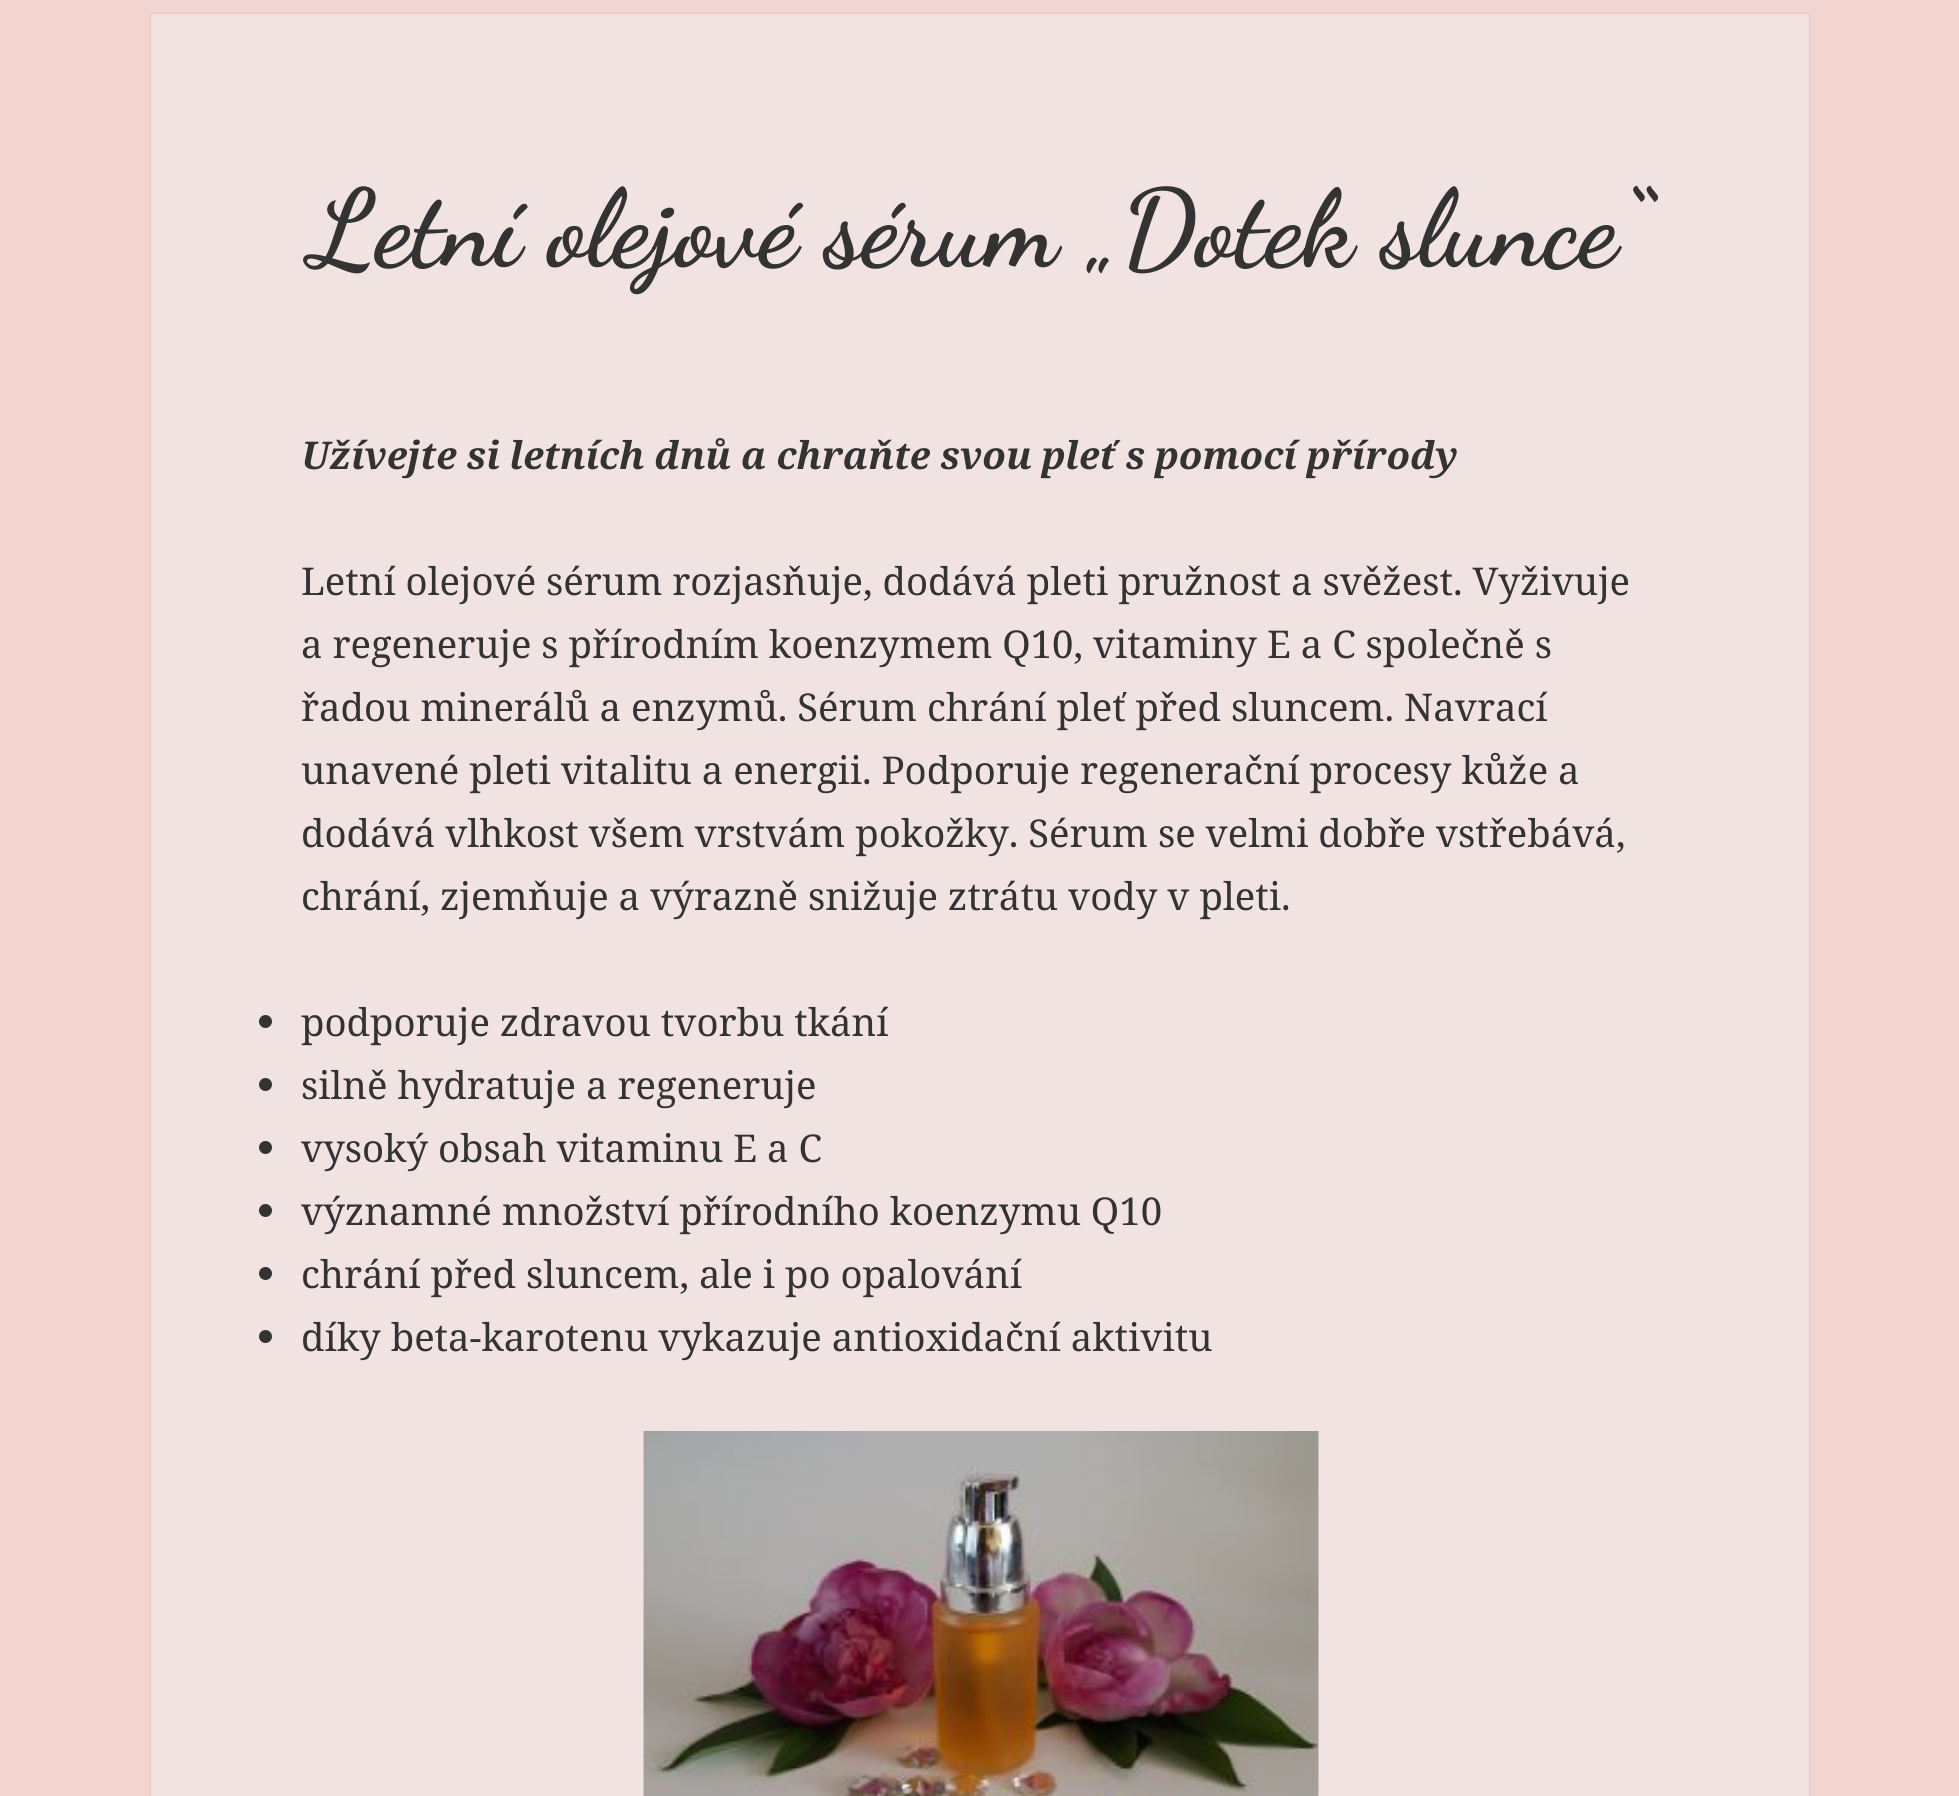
#include <cairo/cairo.h>
#include <math.h>
#include <stddef.h>

static cairo_t *cr;

static void use_color(int r, int g, int b) {
  cairo_set_source_rgb(cr, r / 255.0, g / 255.0, b / 255.0);
}

static void text(double x, double y, const char *s, const char *family, double size, int italic, int bold, int r, int g, int b) {
  cairo_select_font_face(cr, family, italic ? CAIRO_FONT_SLANT_ITALIC : CAIRO_FONT_SLANT_NORMAL,
    bold ? CAIRO_FONT_WEIGHT_BOLD : CAIRO_FONT_WEIGHT_NORMAL);
  cairo_set_font_size(cr, size);
  use_color(r, g, b);
  cairo_move_to(cr, x, y);
  cairo_show_text(cr, s);
}

static void box(double x, double y, double w, double h, int r, int g, int b) {
  use_color(r, g, b);
  cairo_rectangle(cr, x, y, w, h);
  cairo_fill(cr);
}

static void round_rect(double x, double y, double w, double h, double r) {
  cairo_new_sub_path(cr);
  cairo_arc(cr, x + w - r, y + h - r, r, 0, M_PI / 2);
  cairo_arc(cr, x + r, y + h - r, r, M_PI / 2, M_PI);
  cairo_arc(cr, x + r, y + r, r, M_PI, 1.5 * M_PI);
  cairo_arc(cr, x + w - r, y + r, r, 1.5 * M_PI, 2 * M_PI);
  cairo_close_path(cr);
}

static void shadow(double x, double y, double w, double h, double r, double blur, double alpha) {
  cairo_push_group_with_content(cr, CAIRO_CONTENT_ALPHA);
  cairo_set_operator(cr, CAIRO_OPERATOR_SOURCE);
  for (int i = 15; i >= -15 && fmin(w, h) + blur * i / 3 > 0; i -= 2) {
    double e = blur * i / 6;
    cairo_set_source_rgba(cr, 0, 0, 0, alpha * erfc((i - 1) / 8.5) / 2);
    round_rect(x - e, y - e, w + 2 * e, h + 2 * e, fmax(0, fmin(r + e + blur * .6, fmin(w, h) / 2 + e)));
    cairo_fill(cr);
  }
  cairo_pattern_t *soft = cairo_pop_group(cr);
  cairo_mask(cr, soft);
  cairo_pattern_destroy(soft);
}

static void picture(const char *path, double x, double y, double w, double h) {
  cairo_surface_t *image = cairo_image_surface_create_from_png(path);
  cairo_save(cr);
  cairo_set_source_surface(cr, image, x, y);
  cairo_rectangle(cr, x, y, w, h);
  cairo_fill(cr);
  cairo_restore(cr);
  cairo_surface_destroy(image);
}

static void draw(void) {
  use_color(242, 212, 208);
  cairo_paint(cr);
  use_color(0, 0, 0);
  shadow(151, 14, 1658, 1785, 0, 1, 0.15);
  box(151, 14, 1658, 1782, 242, 227, 227);
  use_color(51, 51, 51);
  cairo_arc(cr, 265.5, 1021.5, 6.5, 0, 2 * M_PI);
  cairo_fill(cr);
  cairo_arc(cr, 265.5, 1084.5, 6.5, 0, 2 * M_PI);
  cairo_fill(cr);
  cairo_arc(cr, 265.5, 1147.5, 6.5, 0, 2 * M_PI);
  cairo_fill(cr);
  cairo_arc(cr, 265.5, 1210.5, 6.5, 0, 2 * M_PI);
  cairo_fill(cr);
  cairo_arc(cr, 265.5, 1273.5, 6.5, 0, 2 * M_PI);
  cairo_fill(cr);
  cairo_arc(cr, 265.5, 1336.5, 6.5, 0, 2 * M_PI);
  cairo_fill(cr);
  picture("img_01.png", 643, 1431, 676, 365);
  text(310, 264, "Letní olejové sérum „Dotek slunce“", "Dancing Script", 108, 0, 1, 51, 51, 51);
  text(301, 469, "Užívejte si letních dnů a chraňte svou pleť s pomocí přírody", "Noto Serif", 38.25, 1, 1, 51, 51, 51);
  text(301, 595, "Letní olejové sérum rozjasňuje, dodává pleti pružnost a svěžest. Vyživuje", "Noto Serif", 38.25, 0, 0, 51, 51, 51);
  text(301, 658, "a regeneruje s přírodním koenzymem Q10, vitaminy E a C společně s", "Noto Serif", 38.25, 0, 0, 51, 51, 51);
  text(301, 721, "řadou minerálů a enzymů. Sérum chrání pleť před sluncem. Navrací", "Noto Serif", 38.25, 0, 0, 51, 51, 51);
  text(301, 784, "unavené pleti vitalitu a energii. Podporuje regenerační procesy kůže a", "Noto Serif", 38.25, 0, 0, 51, 51, 51);
  text(301, 847, "dodává vlhkost všem vrstvám pokožky. Sérum se velmi dobře vstřebává,", "Noto Serif", 38.25, 0, 0, 51, 51, 51);
  text(301, 910, "chrání, zjemňuje a výrazně snižuje ztrátu vody v pleti.", "Noto Serif", 38.25, 0, 0, 51, 51, 51);
  text(301, 1036, "podporuje zdravou tvorbu tkání", "Noto Serif", 38.25, 0, 0, 51, 51, 51);
  text(301, 1099, "silně hydratuje a regeneruje", "Noto Serif", 38.25, 0, 0, 51, 51, 51);
  text(301, 1162, "vysoký obsah vitaminu E a C", "Noto Serif", 38.25, 0, 0, 51, 51, 51);
  text(301, 1225, "významné množství přírodního koenzymu Q10", "Noto Serif", 38.25, 0, 0, 51, 51, 51);
  text(301, 1288, "chrání před sluncem, ale i po opalování", "Noto Serif", 38.25, 0, 0, 51, 51, 51);
  text(301, 1351, "díky beta-karotenu vykazuje antioxidační aktivitu", "Noto Serif", 38.25, 0, 0, 51, 51, 51);
}

int main(void) {
  cairo_surface_t *surface = cairo_image_surface_create(CAIRO_FORMAT_RGB24, 1959, 1796);
  cr = cairo_create(surface);
  cairo_font_options_t *options = cairo_font_options_create();
  cairo_font_options_set_hint_metrics(options, CAIRO_HINT_METRICS_OFF);
  cairo_font_options_set_hint_style(options, CAIRO_HINT_STYLE_NONE);
  cairo_set_font_options(cr, options);
  cairo_set_miter_limit(cr, 4);
  draw();
  cairo_surface_write_to_png(surface, "out.png");
  cairo_font_options_destroy(options);
  cairo_destroy(cr);
  cairo_surface_destroy(surface);
  return 0;
}
